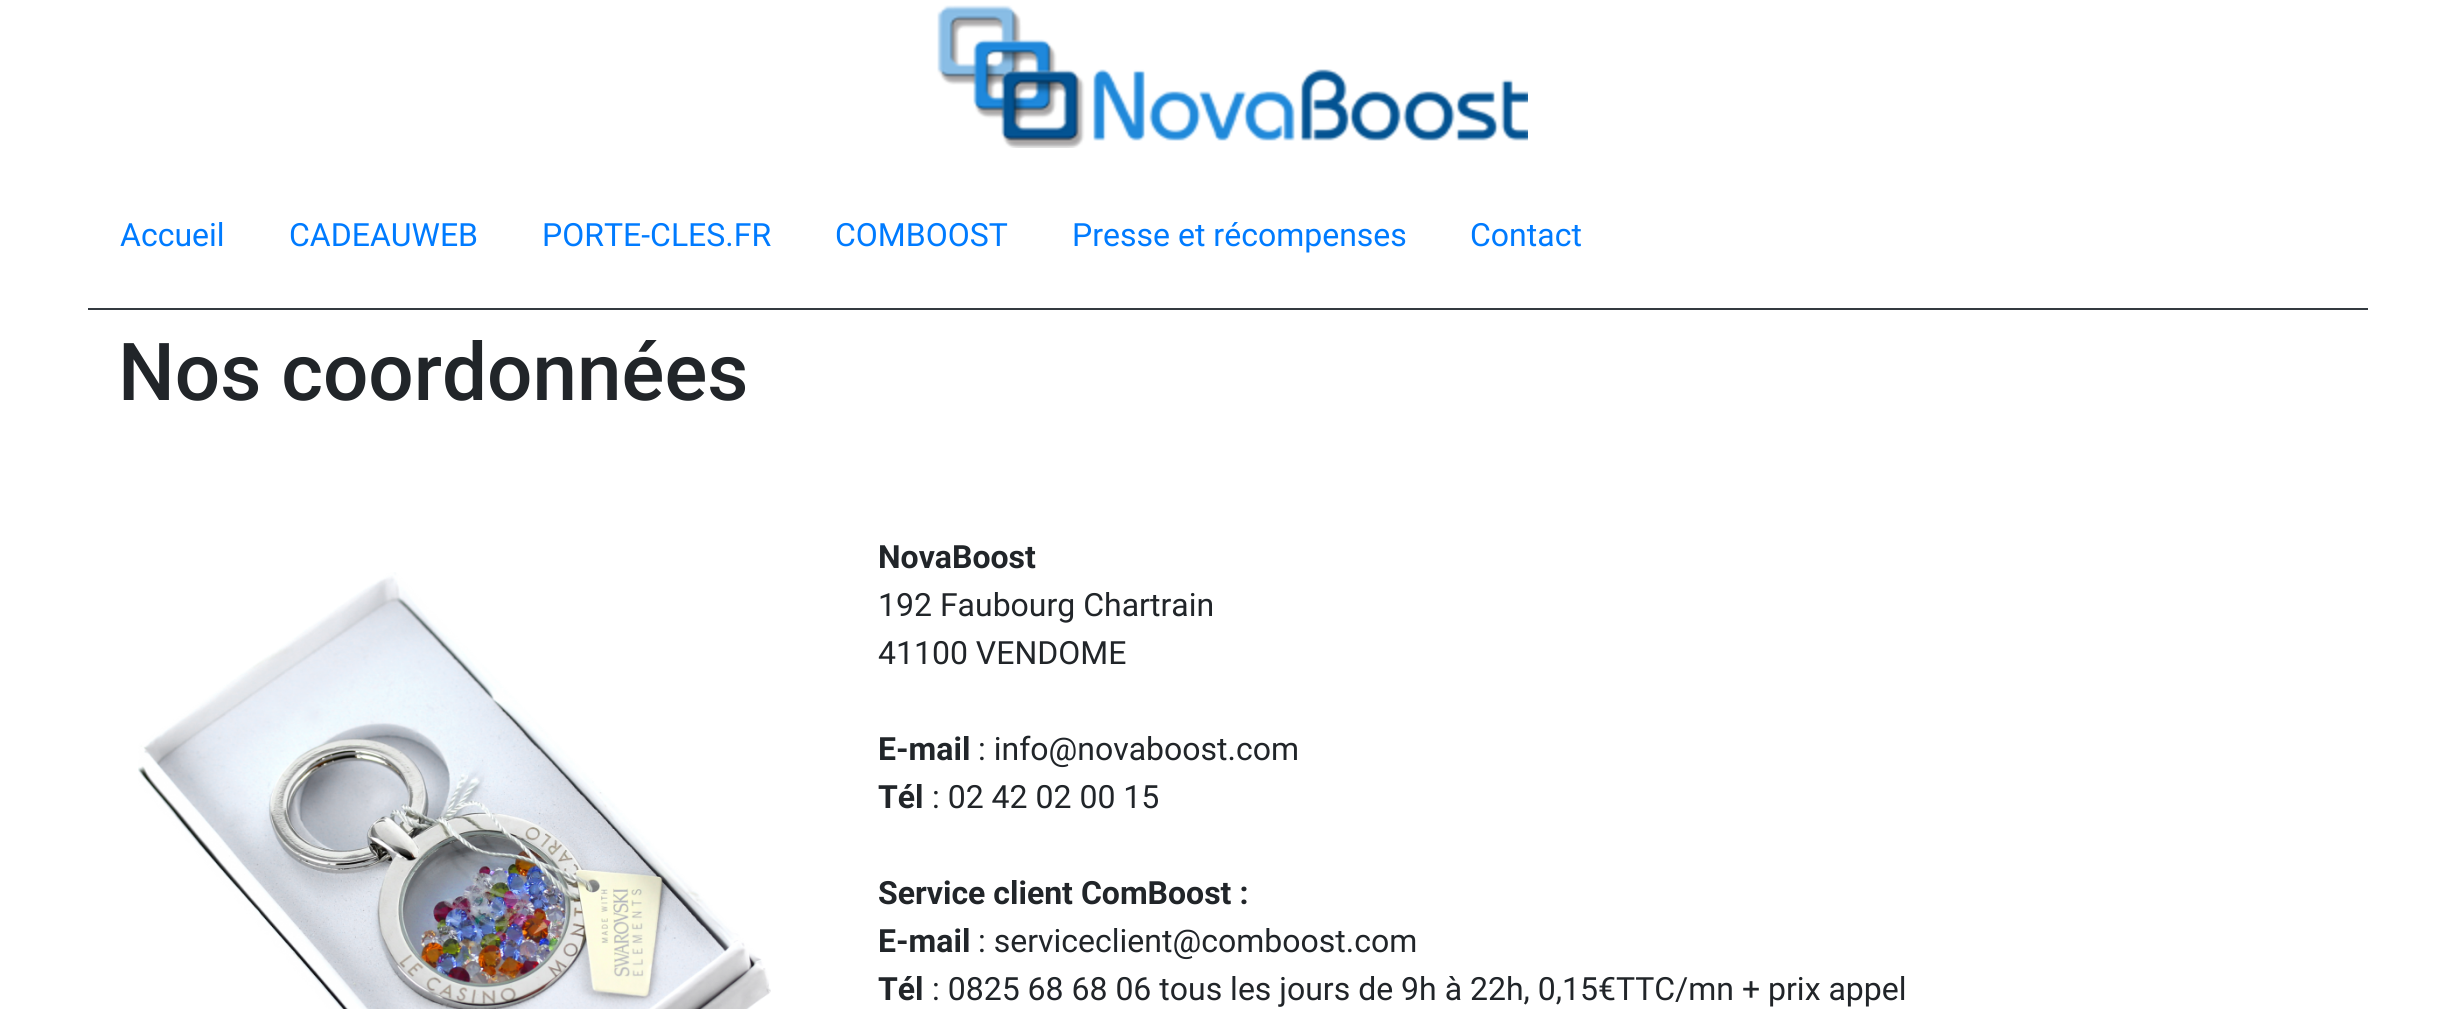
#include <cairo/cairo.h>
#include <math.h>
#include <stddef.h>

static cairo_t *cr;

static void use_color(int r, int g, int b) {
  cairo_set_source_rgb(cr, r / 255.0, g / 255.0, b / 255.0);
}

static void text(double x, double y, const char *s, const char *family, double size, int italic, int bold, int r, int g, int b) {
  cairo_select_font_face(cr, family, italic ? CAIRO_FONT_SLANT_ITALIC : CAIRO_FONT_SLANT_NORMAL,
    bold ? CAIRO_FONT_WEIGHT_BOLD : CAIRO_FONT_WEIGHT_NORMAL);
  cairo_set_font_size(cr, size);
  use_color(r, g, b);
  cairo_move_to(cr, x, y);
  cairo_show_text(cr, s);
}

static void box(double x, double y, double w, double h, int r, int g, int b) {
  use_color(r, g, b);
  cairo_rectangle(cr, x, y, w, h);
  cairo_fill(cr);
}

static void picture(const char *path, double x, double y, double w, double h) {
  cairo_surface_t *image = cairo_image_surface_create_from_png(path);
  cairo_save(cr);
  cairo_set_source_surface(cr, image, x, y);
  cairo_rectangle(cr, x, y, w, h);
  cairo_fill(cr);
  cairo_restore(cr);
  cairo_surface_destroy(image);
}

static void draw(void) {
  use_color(255, 255, 255);
  cairo_paint(cr);
  picture("img_01.png", 937, 5, 591, 143);
  box(88, 308, 2280, 2, 52, 58, 64);
  picture("img_02.png", 138, 572, 633, 437);
  text(120, 246, "Accueil", "Roboto", 32, 0, 0, 0, 123, 255);
  text(289, 246, "CADEAUWEB", "Roboto", 32, 0, 0, 0, 123, 255);
  text(542, 246, "PORTE-CLES.FR", "Roboto", 32, 0, 0, 0, 123, 255);
  text(835, 246, "COMBOOST", "Roboto", 32, 0, 0, 0, 123, 255);
  text(1072, 246, "Presse et récompenses", "Roboto", 32, 0, 0, 0, 123, 255);
  text(1470, 246, "Contact", "Roboto", 32, 0, 0, 0, 123, 255);
  text(118, 400, "Nos coordonnées", "Roboto Medium", 80, 0, 0, 33, 37, 41);
  text(878, 568, "NovaBoost", "Roboto", 32, 0, 1, 33, 37, 41);
  text(878, 616, "192 Faubourg Chartrain", "Roboto", 32, 0, 0, 33, 37, 41);
  text(878, 664, "41100 VENDOME", "Roboto", 32, 0, 0, 33, 37, 41);
  text(878, 760, "E-mail", "Roboto", 32, 0, 1, 33, 37, 41);
  text(978, 760, ": info@novaboost.com", "Roboto", 32, 0, 0, 33, 37, 41);
  text(878, 808, "Tél", "Roboto", 32, 0, 1, 33, 37, 41);
  text(932, 808, ": 02 42 02 00 15", "Roboto", 32, 0, 0, 33, 37, 41);
  text(878, 904, "Service client ComBoost :", "Roboto", 32, 0, 1, 33, 37, 41);
  text(878, 952, "E-mail", "Roboto", 32, 0, 1, 33, 37, 41);
  text(978, 952, ": serviceclient@comboost.com", "Roboto", 32, 0, 0, 33, 37, 41);
  text(878, 1000, "Tél", "Roboto", 32, 0, 1, 33, 37, 41);
  text(932, 1000, ": 0825 68 68 06 tous les jours de 9h à 22h, 0,15€TTC/mn + prix appel", "Roboto", 32, 0, 0, 33, 37, 41);
}

int main(void) {
  cairo_surface_t *surface = cairo_image_surface_create(CAIRO_FORMAT_RGB24, 2456, 1009);
  cr = cairo_create(surface);
  cairo_font_options_t *options = cairo_font_options_create();
  cairo_font_options_set_hint_metrics(options, CAIRO_HINT_METRICS_OFF);
  cairo_font_options_set_hint_style(options, CAIRO_HINT_STYLE_NONE);
  cairo_set_font_options(cr, options);
  cairo_set_miter_limit(cr, 4);
  draw();
  cairo_surface_write_to_png(surface, "out.png");
  cairo_font_options_destroy(options);
  cairo_destroy(cr);
  cairo_surface_destroy(surface);
  return 0;
}
